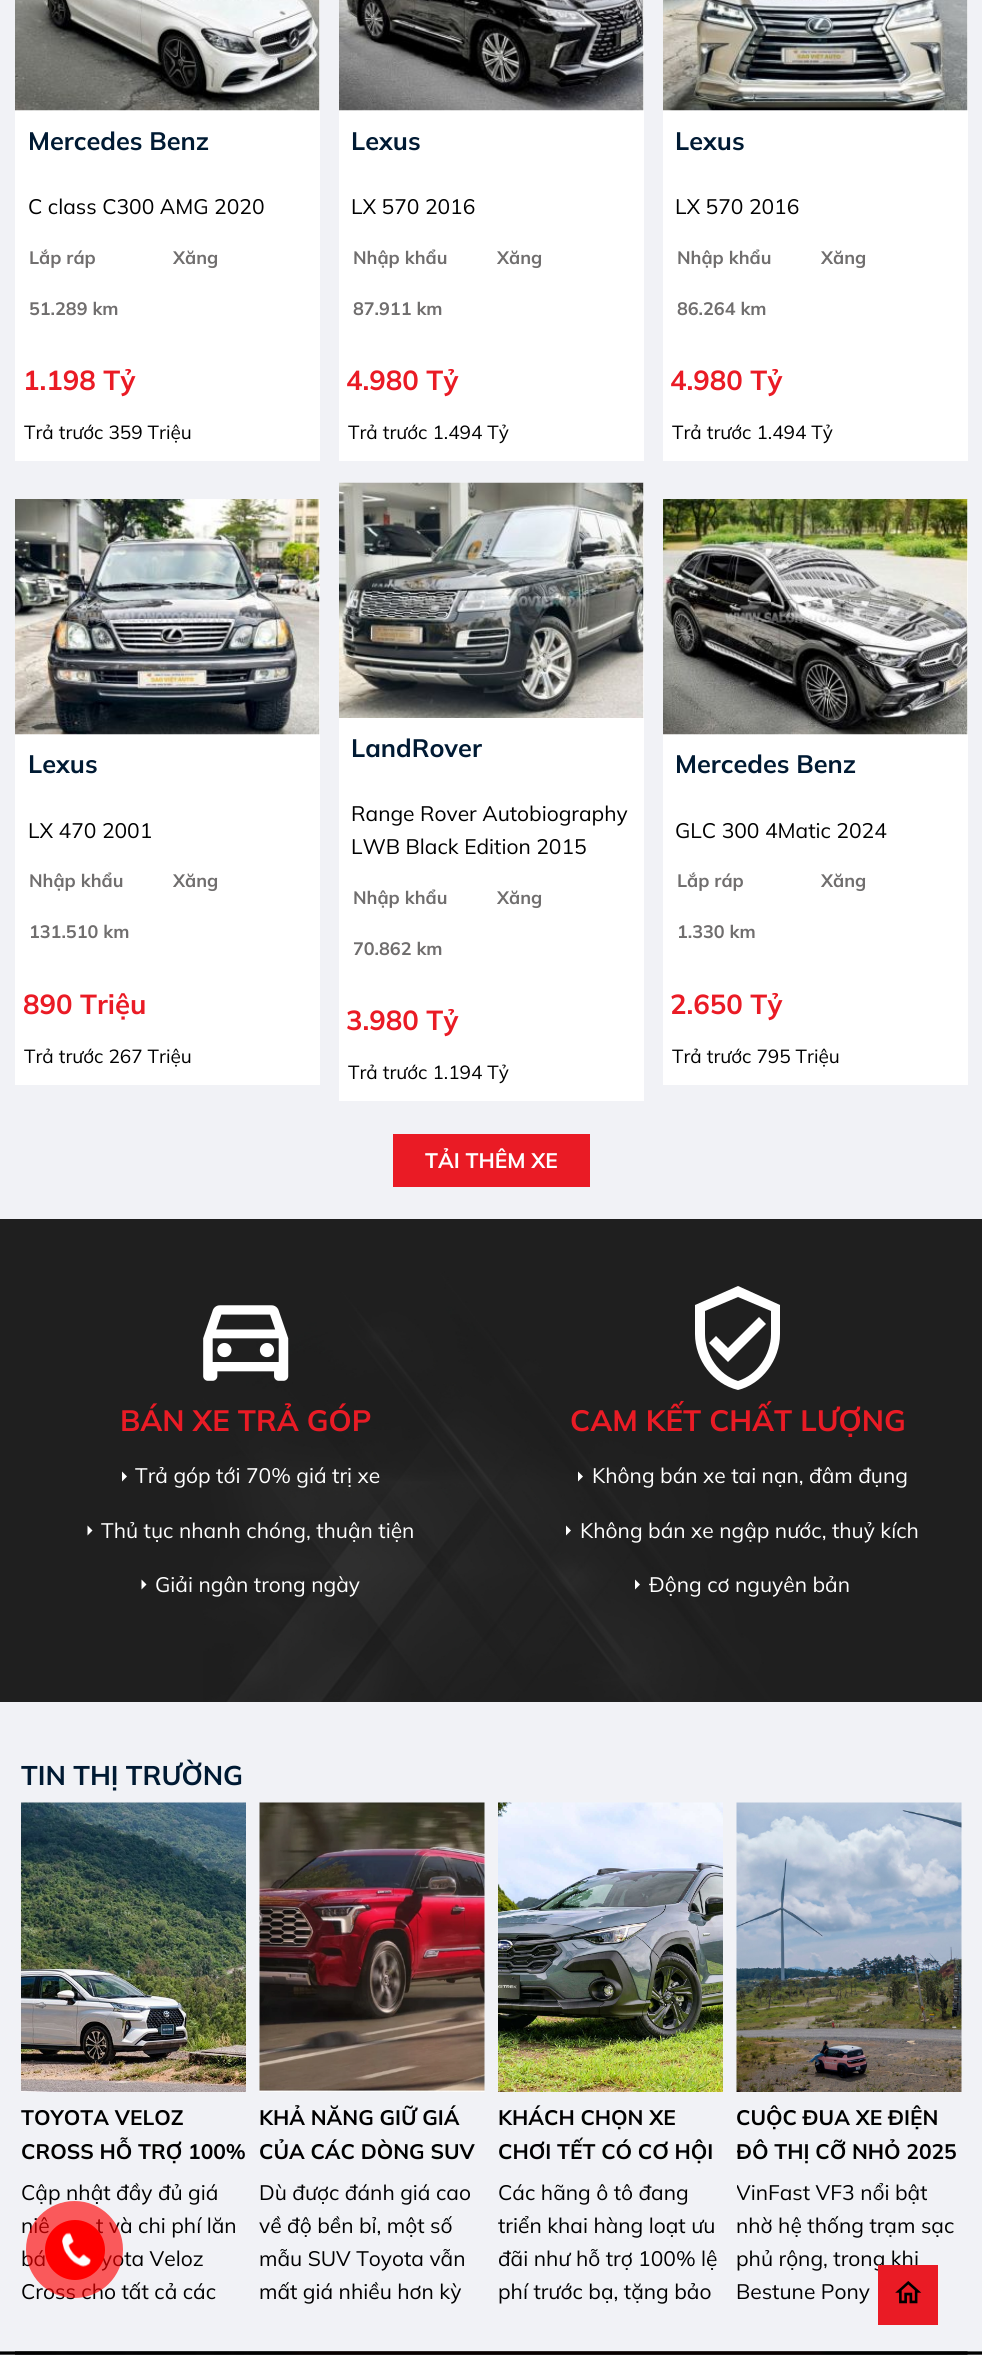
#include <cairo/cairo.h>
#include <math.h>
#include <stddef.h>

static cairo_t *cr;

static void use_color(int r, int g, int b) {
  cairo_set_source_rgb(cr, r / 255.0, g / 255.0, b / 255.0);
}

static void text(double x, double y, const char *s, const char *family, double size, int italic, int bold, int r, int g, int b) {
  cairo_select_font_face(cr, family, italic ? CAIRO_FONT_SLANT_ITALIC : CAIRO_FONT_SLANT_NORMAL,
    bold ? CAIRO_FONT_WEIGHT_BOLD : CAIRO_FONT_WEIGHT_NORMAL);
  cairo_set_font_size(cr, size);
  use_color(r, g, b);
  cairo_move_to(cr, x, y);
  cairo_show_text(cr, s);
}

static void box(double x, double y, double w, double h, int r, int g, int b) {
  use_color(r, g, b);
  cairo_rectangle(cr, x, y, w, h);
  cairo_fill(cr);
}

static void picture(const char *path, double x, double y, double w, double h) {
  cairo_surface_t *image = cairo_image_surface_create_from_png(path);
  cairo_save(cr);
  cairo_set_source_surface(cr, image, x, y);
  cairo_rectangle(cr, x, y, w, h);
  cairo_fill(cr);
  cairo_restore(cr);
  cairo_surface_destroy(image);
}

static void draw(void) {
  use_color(241, 242, 246);
  cairo_paint(cr);
  box(15, 0, 305, 461, 255, 255, 255);
  picture("img_01.png", 15, 0, 305, 111);
  box(339, 0, 305, 461, 255, 255, 255);
  picture("img_02.png", 339, 0, 305, 111);
  box(663, 0, 305, 461, 255, 255, 255);
  picture("img_03.png", 663, 0, 305, 111);
  box(15, 500, 305, 585, 255, 255, 255);
  picture("img_04.png", 15, 499, 305, 236);
  box(339, 483, 305, 618, 255, 255, 255);
  picture("img_05.png", 339, 482, 305, 236);
  box(663, 500, 305, 585, 255, 255, 255);
  picture("img_06.png", 663, 499, 305, 236);
  box(393, 1134, 197, 53, 234, 27, 37);
  picture("img_07.png", 0, 1219, 982, 483);
  picture("img_08.png", 203, 1305, 86, 76);
  use_color(255, 255, 255);
  cairo_new_path(cr);
  cairo_move_to(cr, 122, 1481.5);
  cairo_line_to(cr, 127, 1476.5);
  cairo_line_to(cr, 122, 1471.5);
  cairo_close_path(cr);
  cairo_fill(cr);
  cairo_new_path(cr);
  cairo_move_to(cr, 87.5, 1535.5);
  cairo_line_to(cr, 92.5, 1530.5);
  cairo_line_to(cr, 87.5, 1525.5);
  cairo_close_path(cr);
  cairo_fill(cr);
  cairo_new_path(cr);
  cairo_move_to(cr, 141.5, 1589.5);
  cairo_line_to(cr, 146.5, 1584.5);
  cairo_line_to(cr, 141.5, 1579.5);
  cairo_close_path(cr);
  cairo_fill(cr);
  cairo_new_path(cr);
  cairo_move_to(cr, 738, 1286);
  cairo_line_to(cr, 695, 1305);
  cairo_line_to(cr, 695, 1334);
  cairo_curve_to(cr, 695, 1360, 713, 1384, 738, 1390);
  cairo_curve_to(cr, 762, 1384, 780, 1360, 780, 1334);
  cairo_line_to(cr, 780, 1305);
  cairo_close_path(cr);
  cairo_move_to(cr, 771, 1334);
  cairo_curve_to(cr, 771, 1355, 757, 1375, 738, 1381);
  cairo_curve_to(cr, 719, 1375, 705, 1355, 705, 1334);
  cairo_line_to(cr, 705, 1311);
  cairo_line_to(cr, 738, 1297);
  cairo_line_to(cr, 771, 1311);
  cairo_close_path(cr);
  cairo_move_to(cr, 716, 1336);
  cairo_line_to(cr, 709, 1343);
  cairo_line_to(cr, 728, 1362);
  cairo_line_to(cr, 766, 1324);
  cairo_line_to(cr, 759, 1317);
  cairo_line_to(cr, 728, 1348);
  cairo_close_path(cr);
  cairo_fill(cr);
  cairo_new_path(cr);
  cairo_move_to(cr, 578, 1481.5);
  cairo_line_to(cr, 583, 1476.5);
  cairo_line_to(cr, 578, 1471.5);
  cairo_close_path(cr);
  cairo_fill(cr);
  cairo_new_path(cr);
  cairo_move_to(cr, 566, 1535.5);
  cairo_line_to(cr, 571, 1530.5);
  cairo_line_to(cr, 566, 1525.5);
  cairo_close_path(cr);
  cairo_fill(cr);
  cairo_new_path(cr);
  cairo_move_to(cr, 635, 1589.5);
  cairo_line_to(cr, 640, 1584.5);
  cairo_line_to(cr, 635, 1579.5);
  cairo_close_path(cr);
  cairo_fill(cr);
  picture("img_09.png", 21, 1802, 225, 290);
  picture("img_10.png", 259, 1802, 226, 290);
  picture("img_11.png", 498, 1802, 225, 290);
  picture("img_12.png", 736, 1802, 226, 290);
  picture("img_13.png", 0, 2351, 982, 4);
  picture("img_16.png", 15, 2351, 953, 4);
  text(28, 150, "Mercedes Benz", "Mulish", 25.25, 0, 1, 0, 26, 51);
  text(28, 214, "C class C300 AMG 2020", "Mulish", 21, 0, 0, 0, 0, 0);
  text(29, 264, "Lắp ráp", "Mulish", 18, 0, 1, 112, 110, 110);
  text(173, 264, "Xăng", "Mulish", 18, 0, 1, 112, 110, 110);
  text(29, 315, "51.289 km", "Mulish", 18, 0, 1, 112, 110, 110);
  text(23, 390, "1.198 Tỷ", "Mulish", 27.5, 0, 1, 234, 27, 37);
  text(24, 439, "Trả trước 359 Triệu", "Mulish", 19, 0, 0, 0, 0, 0);
  text(351, 150, "Lexus", "Mulish", 25.25, 0, 1, 0, 26, 51);
  text(351, 214, "LX 570 2016", "Mulish", 21, 0, 0, 0, 0, 0);
  text(353, 264, "Nhập khẩu", "Mulish", 18, 0, 1, 112, 110, 110);
  text(497, 264, "Xăng", "Mulish", 18, 0, 1, 112, 110, 110);
  text(353, 315, "87.911 km", "Mulish", 18, 0, 1, 112, 110, 110);
  text(346, 390, "4.980 Tỷ", "Mulish", 27.5, 0, 1, 234, 27, 37);
  text(348, 439, "Trả trước 1.494 Tỷ", "Mulish", 19, 0, 0, 0, 0, 0);
  text(675, 150, "Lexus", "Mulish", 25.25, 0, 1, 0, 26, 51);
  text(675, 214, "LX 570 2016", "Mulish", 21, 0, 0, 0, 0, 0);
  text(677, 264, "Nhập khẩu", "Mulish", 18, 0, 1, 112, 110, 110);
  text(821, 264, "Xăng", "Mulish", 18, 0, 1, 112, 110, 110);
  text(677, 315, "86.264 km", "Mulish", 18, 0, 1, 112, 110, 110);
  text(670, 390, "4.980 Tỷ", "Mulish", 27.5, 0, 1, 234, 27, 37);
  text(672, 439, "Trả trước 1.494 Tỷ", "Mulish", 19, 0, 0, 0, 0, 0);
  text(28, 773, "Lexus", "Mulish", 25.25, 0, 1, 0, 26, 51);
  text(28, 838, "LX 470 2001", "Mulish", 21, 0, 0, 0, 0, 0);
  text(29, 887, "Nhập khẩu", "Mulish", 18, 0, 1, 112, 110, 110);
  text(173, 887, "Xăng", "Mulish", 18, 0, 1, 112, 110, 110);
  text(29, 938, "131.510 km", "Mulish", 18, 0, 1, 112, 110, 110);
  text(23, 1014, "890 Triệu", "Mulish", 27.5, 0, 1, 234, 27, 37);
  text(24, 1063, "Trả trước 267 Triệu", "Mulish", 19, 0, 0, 0, 0, 0);
  text(351, 757, "LandRover", "Mulish", 25.25, 0, 1, 0, 26, 51);
  text(351, 821, "Range Rover Autobiography", "Mulish", 21, 0, 0, 0, 0, 0);
  text(351, 854, "LWB Black Edition 2015", "Mulish", 21, 0, 0, 0, 0, 0);
  text(353, 904, "Nhập khẩu", "Mulish", 18, 0, 1, 112, 110, 110);
  text(497, 904, "Xăng", "Mulish", 18, 0, 1, 112, 110, 110);
  text(353, 955, "70.862 km", "Mulish", 18, 0, 1, 112, 110, 110);
  text(346, 1030, "3.980 Tỷ", "Mulish", 27.5, 0, 1, 234, 27, 37);
  text(348, 1079, "Trả trước 1.194 Tỷ", "Mulish", 19, 0, 0, 0, 0, 0);
  text(675, 773, "Mercedes Benz", "Mulish", 25.25, 0, 1, 0, 26, 51);
  text(675, 838, "GLC 300 4Matic 2024", "Mulish", 21, 0, 0, 0, 0, 0);
  text(677, 887, "Lắp ráp", "Mulish", 18, 0, 1, 112, 110, 110);
  text(821, 887, "Xăng", "Mulish", 18, 0, 1, 112, 110, 110);
  text(677, 938, "1.330 km", "Mulish", 18, 0, 1, 112, 110, 110);
  text(670, 1014, "2.650 Tỷ", "Mulish", 27.5, 0, 1, 234, 27, 37);
  text(672, 1063, "Trả trước 795 Triệu", "Mulish", 19, 0, 0, 0, 0, 0);
  text(425, 1168, "TẢI THÊM XE", "Mulish", 21, 0, 1, 255, 255, 255);
  text(120, 1431, "BÁN XE TRẢ GÓP", "Mulish", 29.4, 0, 1, 234, 27, 37);
  text(135, 1483, "Trả góp tới 70% giá trị xe", "Mulish", 21, 0, 0, 255, 255, 255);
  text(101, 1538, "Thủ tục nhanh chóng, thuận tiện", "Mulish", 21, 0, 0, 255, 255, 255);
  text(155, 1592, "Giải ngân trong ngày", "Mulish", 21, 0, 0, 255, 255, 255);
  text(570, 1431, "CAM KẾT CHẤT LƯỢNG", "Mulish", 29.4, 0, 1, 234, 27, 37);
  text(592, 1483, "Không bán xe tai nạn, đâm đụng", "Mulish", 21, 0, 0, 255, 255, 255);
  text(580, 1538, "Không bán xe ngập nước, thuỷ kích", "Mulish", 21, 0, 0, 255, 255, 255);
  text(649, 1592, "Động cơ nguyên bản", "Mulish", 21, 0, 0, 255, 255, 255);
  text(21, 1785, "TIN THỊ TRƯỜNG", "Mulish", 27, 0, 1, 0, 26, 51);
  text(21, 2125, "TOYOTA VELOZ", "Mulish", 21, 0, 1, 0, 0, 0);
  text(21, 2159, "CROSS HỖ TRỢ 100%", "Mulish", 21, 0, 1, 0, 0, 0);
  text(21, 2200, "Cập nhật đầy đủ giá", "Mulish", 21, 0, 0, 0, 0, 0);
  text(21, 2233, "niê", "Mulish", 21, 0, 0, 0, 0, 0);
  text(96, 2233, "t và chi phí lăn", "Mulish", 21, 0, 0, 0, 0, 0);
  text(21, 2266, "bá", "Mulish", 21, 0, 0, 0, 0, 0);
  text(101, 2266, "yota Veloz", "Mulish", 21, 0, 0, 0, 0, 0);
  text(21, 2299, "Cross cho tất cả các", "Mulish", 21, 0, 0, 0, 0, 0);
  text(259, 2125, "KHẢ NĂNG GIỮ GIÁ", "Mulish", 21, 0, 1, 0, 0, 0);
  text(259, 2159, "CỦA CÁC DÒNG SUV", "Mulish", 21, 0, 1, 0, 0, 0);
  text(259, 2200, "Dù được đánh giá cao", "Mulish", 21, 0, 0, 0, 0, 0);
  text(259, 2233, "về độ bền bỉ, một số", "Mulish", 21, 0, 0, 0, 0, 0);
  text(259, 2266, "mẫu SUV Toyota vẫn", "Mulish", 21, 0, 0, 0, 0, 0);
  text(259, 2299, "mất giá nhiều hơn kỳ", "Mulish", 21, 0, 0, 0, 0, 0);
  text(498, 2125, "KHÁCH CHỌN XE", "Mulish", 21, 0, 1, 0, 0, 0);
  text(498, 2159, "CHƠI TẾT CÓ CƠ HỘI", "Mulish", 21, 0, 1, 0, 0, 0);
  text(498, 2200, "Các hãng ô tô đang", "Mulish", 21, 0, 0, 0, 0, 0);
  text(498, 2233, "triển khai hàng loạt ưu", "Mulish", 21, 0, 0, 0, 0, 0);
  text(498, 2266, "đãi như hỗ trợ 100% lệ", "Mulish", 21, 0, 0, 0, 0, 0);
  text(498, 2299, "phí trước bạ, tặng bảo", "Mulish", 21, 0, 0, 0, 0, 0);
  text(736, 2125, "CUỘC ĐUA XE ĐIỆN", "Mulish", 21, 0, 1, 0, 0, 0);
  cairo_save(cr);
  cairo_rectangle(cr, 737, 2099, 225, 66);
  cairo_clip(cr);
  text(736, 2159, "ĐÔ THỊ CỠ NHỎ 2025", "Mulish", 21, 0, 1, 0, 0, 0);
  cairo_restore(cr);
  cairo_save(cr);
  cairo_rectangle(cr, 737, 2175, 225, 132);
  cairo_clip(cr);
  text(736, 2200, "VinFast VF3 nổi bật", "Mulish", 21, 0, 0, 0, 0, 0);
  cairo_restore(cr);
  text(736, 2233, "nhờ hệ thống trạm sạc", "Mulish", 21, 0, 0, 0, 0, 0);
  text(736, 2266, "phủ rộng, trong khi", "Mulish", 21, 0, 0, 0, 0, 0);
  text(736, 2299, "Bestune Pony", "Mulish", 21, 0, 0, 0, 0, 0);
  cairo_set_source_rgba(cr, 1, 0, 0, 0.63);
  cairo_new_path(cr);
  cairo_arc(cr, 74.5, 2249.5, 48.5, 0, 2 * M_PI);
  cairo_fill(cr);
  use_color(255, 0, 0);
  cairo_arc(cr, 75, 2250, 30, 0, 2 * M_PI);
  cairo_fill(cr);
  picture("img_14.png", 62, 2232, 29, 35);
  box(878, 2265, 60, 60, 234, 27, 37);
  picture("img_15.png", 895, 2281, 27, 23);
}

int main(void) {
  cairo_surface_t *surface = cairo_image_surface_create(CAIRO_FORMAT_RGB24, 982, 2355);
  cr = cairo_create(surface);
  cairo_font_options_t *options = cairo_font_options_create();
  cairo_font_options_set_hint_metrics(options, CAIRO_HINT_METRICS_OFF);
  cairo_font_options_set_hint_style(options, CAIRO_HINT_STYLE_NONE);
  cairo_set_font_options(cr, options);
  cairo_set_miter_limit(cr, 4);
  draw();
  cairo_surface_write_to_png(surface, "out.png");
  cairo_font_options_destroy(options);
  cairo_destroy(cr);
  cairo_surface_destroy(surface);
  return 0;
}
